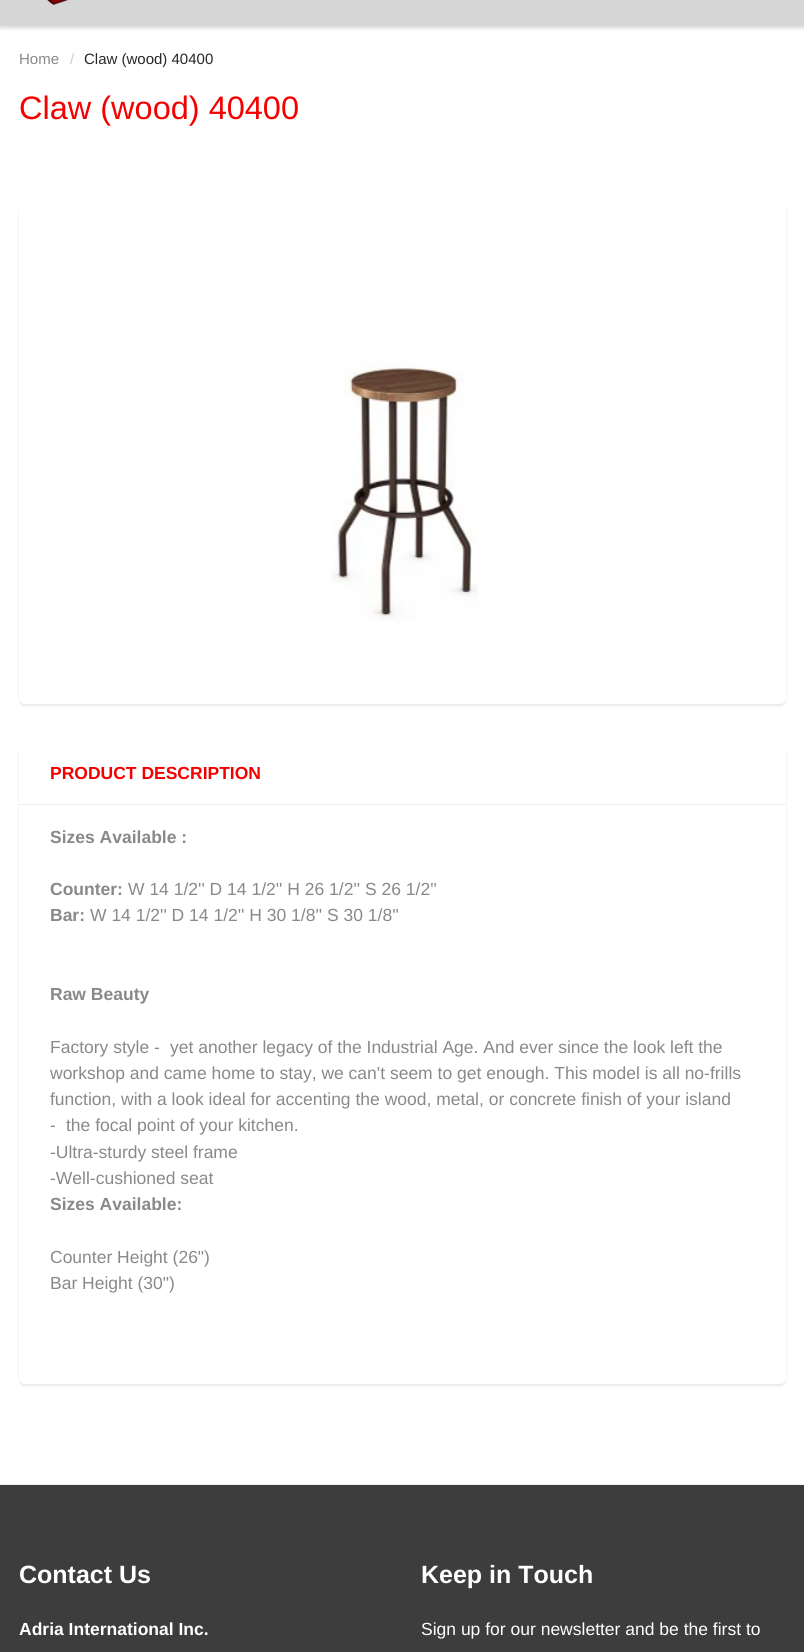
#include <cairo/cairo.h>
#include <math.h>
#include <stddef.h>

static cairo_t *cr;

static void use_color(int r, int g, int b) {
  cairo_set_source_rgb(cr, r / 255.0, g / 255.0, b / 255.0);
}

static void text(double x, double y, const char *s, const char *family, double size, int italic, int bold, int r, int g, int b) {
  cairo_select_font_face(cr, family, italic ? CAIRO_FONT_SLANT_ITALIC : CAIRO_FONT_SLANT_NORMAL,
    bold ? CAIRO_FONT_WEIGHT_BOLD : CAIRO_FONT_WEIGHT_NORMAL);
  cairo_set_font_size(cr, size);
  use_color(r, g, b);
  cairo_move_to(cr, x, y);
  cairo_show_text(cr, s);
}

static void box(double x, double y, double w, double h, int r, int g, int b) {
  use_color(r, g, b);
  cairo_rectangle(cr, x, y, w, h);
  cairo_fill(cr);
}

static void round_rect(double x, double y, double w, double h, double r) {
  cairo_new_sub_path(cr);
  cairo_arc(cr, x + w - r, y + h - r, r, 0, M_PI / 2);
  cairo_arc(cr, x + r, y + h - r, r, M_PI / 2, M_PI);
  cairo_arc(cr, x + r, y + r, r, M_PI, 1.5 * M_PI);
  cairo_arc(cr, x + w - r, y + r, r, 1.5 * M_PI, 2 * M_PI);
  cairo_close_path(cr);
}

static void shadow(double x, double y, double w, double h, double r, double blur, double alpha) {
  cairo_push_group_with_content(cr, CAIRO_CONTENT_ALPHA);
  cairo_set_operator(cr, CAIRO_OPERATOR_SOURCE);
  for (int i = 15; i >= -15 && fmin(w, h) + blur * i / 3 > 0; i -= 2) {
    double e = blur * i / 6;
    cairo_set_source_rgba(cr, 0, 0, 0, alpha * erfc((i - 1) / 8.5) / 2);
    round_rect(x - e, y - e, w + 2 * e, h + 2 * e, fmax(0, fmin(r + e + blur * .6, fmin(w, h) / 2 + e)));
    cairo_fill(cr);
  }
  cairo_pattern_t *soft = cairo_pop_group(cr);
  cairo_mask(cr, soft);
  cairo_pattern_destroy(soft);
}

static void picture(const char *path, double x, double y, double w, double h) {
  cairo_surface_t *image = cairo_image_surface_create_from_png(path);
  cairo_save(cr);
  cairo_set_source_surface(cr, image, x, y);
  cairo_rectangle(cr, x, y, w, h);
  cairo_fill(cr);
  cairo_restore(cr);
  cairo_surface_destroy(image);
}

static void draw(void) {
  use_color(255, 255, 255);
  cairo_paint(cr);
  use_color(11, 25, 28);
  shadow(0, -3, 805, 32, 0, 1, 0.12);
  box(0, 0, 804, 26, 214, 214, 214);
  picture("img_01.png", 47, 0, 22, 5);
  use_color(11, 25, 28);
  shadow(19, 205, 767, 501, 6, 1, 0.1);
  use_color(255, 255, 255);
  round_rect(19, 203, 767, 501, 6);
  cairo_fill(cr);
  picture("img_02.png", 330, 361, 149, 261);
  use_color(11, 25, 28);
  shadow(19, 744, 767, 642, 6, 1, 0.1);
  use_color(255, 255, 255);
  round_rect(19, 741, 767, 643, 6);
  cairo_fill(cr);
  box(19, 804, 767, 1, 239, 239, 239);
  box(0, 1485, 804, 167, 61, 61, 61);
  box(0, 1484, 804, 1, 236, 239, 239);
  text(19, 64, "Home", "Liberation Sans", 15, 0, 0, 137, 137, 137);
  text(70, 64, "/", "Liberation Sans", 15, 0, 0, 204, 204, 204);
  text(84, 64, "Claw (wood) 40400", "Liberation Sans", 15, 0, 0, 40, 39, 39);
  text(19, 119, "Claw (wood) 40400", "Liberation Sans", 32.5, 0, 0, 245, 0, 1);
  text(50, 779, "PRODUCT DESCRIPTION", "Liberation Sans", 17.5, 0, 1, 245, 0, 1);
  text(50, 843, "Sizes Available :", "Liberation Sans", 17.5, 0, 1, 137, 137, 137);
  text(50, 895, "Counter:", "Liberation Sans", 17.5, 0, 1, 137, 137, 137);
  text(128, 895, "W 14 1/2'' D 14 1/2'' H 26 1/2'' S 26 1/2''", "Liberation Sans", 17.5, 0, 0, 137, 137, 137);
  text(50, 921, "Bar:", "Liberation Sans", 17.5, 0, 1, 137, 137, 137);
  text(90, 921, "W 14 1/2'' D 14 1/2'' H 30 1/8'' S 30 1/8''", "Liberation Sans", 17.5, 0, 0, 137, 137, 137);
  text(50, 1000, "Raw Beauty", "Liberation Sans", 17.5, 0, 1, 137, 137, 137);
  text(50, 1053, "Factory style -", "Liberation Sans", 17.5, 0, 0, 137, 137, 137);
  text(170, 1053, "yet another legacy of the Industrial Age. And ever since the look left the", "Liberation Sans", 17.5, 0, 0, 137, 137, 137);
  text(50, 1079, "workshop and came home to stay, we can't seem to get enough. This model is all no-frills", "Liberation Sans", 17.5, 0, 0, 137, 137, 137);
  text(50, 1105, "function, with a look ideal for accenting the wood, metal, or concrete finish of your island", "Liberation Sans", 17.5, 0, 0, 137, 137, 137);
  text(50, 1131, "-", "Liberation Sans", 17.5, 0, 0, 137, 137, 137);
  text(66, 1131, "the focal point of your kitchen.", "Liberation Sans", 17.5, 0, 0, 137, 137, 137);
  text(50, 1158, "-Ultra-sturdy steel frame", "Liberation Sans", 17.5, 0, 0, 137, 137, 137);
  text(50, 1184, "-Well-cushioned seat", "Liberation Sans", 17.5, 0, 0, 137, 137, 137);
  text(50, 1210, "Sizes Available:", "Liberation Sans", 17.5, 0, 1, 137, 137, 137);
  text(50, 1263, "Counter Height (26\")", "Liberation Sans", 17.5, 0, 0, 137, 137, 137);
  text(50, 1289, "Bar Height (30\")", "Liberation Sans", 17.5, 0, 0, 137, 137, 137);
  text(19, 1583, "Contact Us", "Liberation Sans", 25, 0, 1, 255, 255, 255);
  text(19, 1635, "Adria International Inc.", "Liberation Sans", 17.5, 0, 1, 255, 255, 255);
  text(421, 1583, "Keep in Touch", "Liberation Sans", 25, 0, 1, 255, 255, 255);
  text(421, 1635, "Sign up for our newsletter and be the first to", "Liberation Sans", 17.5, 0, 0, 255, 255, 255);
}

int main(void) {
  cairo_surface_t *surface = cairo_image_surface_create(CAIRO_FORMAT_RGB24, 804, 1652);
  cr = cairo_create(surface);
  cairo_font_options_t *options = cairo_font_options_create();
  cairo_font_options_set_hint_metrics(options, CAIRO_HINT_METRICS_OFF);
  cairo_font_options_set_hint_style(options, CAIRO_HINT_STYLE_NONE);
  cairo_set_font_options(cr, options);
  cairo_set_miter_limit(cr, 4);
  draw();
  cairo_surface_write_to_png(surface, "out.png");
  cairo_font_options_destroy(options);
  cairo_destroy(cr);
  cairo_surface_destroy(surface);
  return 0;
}
